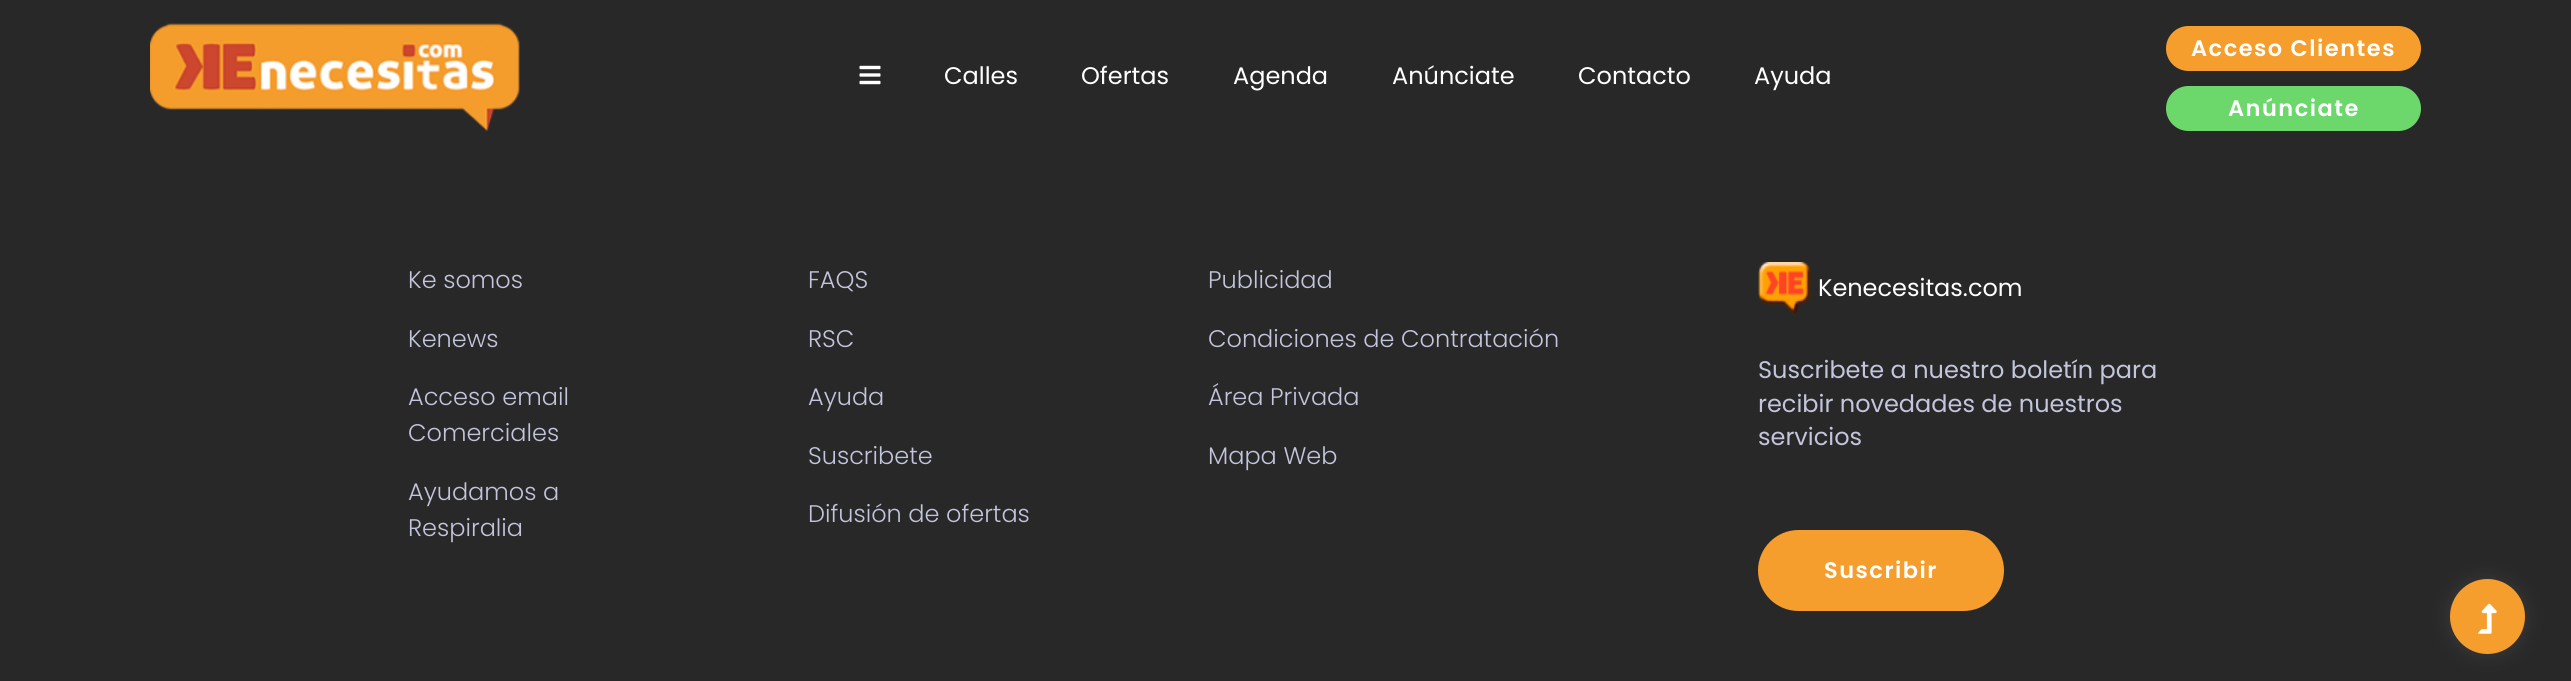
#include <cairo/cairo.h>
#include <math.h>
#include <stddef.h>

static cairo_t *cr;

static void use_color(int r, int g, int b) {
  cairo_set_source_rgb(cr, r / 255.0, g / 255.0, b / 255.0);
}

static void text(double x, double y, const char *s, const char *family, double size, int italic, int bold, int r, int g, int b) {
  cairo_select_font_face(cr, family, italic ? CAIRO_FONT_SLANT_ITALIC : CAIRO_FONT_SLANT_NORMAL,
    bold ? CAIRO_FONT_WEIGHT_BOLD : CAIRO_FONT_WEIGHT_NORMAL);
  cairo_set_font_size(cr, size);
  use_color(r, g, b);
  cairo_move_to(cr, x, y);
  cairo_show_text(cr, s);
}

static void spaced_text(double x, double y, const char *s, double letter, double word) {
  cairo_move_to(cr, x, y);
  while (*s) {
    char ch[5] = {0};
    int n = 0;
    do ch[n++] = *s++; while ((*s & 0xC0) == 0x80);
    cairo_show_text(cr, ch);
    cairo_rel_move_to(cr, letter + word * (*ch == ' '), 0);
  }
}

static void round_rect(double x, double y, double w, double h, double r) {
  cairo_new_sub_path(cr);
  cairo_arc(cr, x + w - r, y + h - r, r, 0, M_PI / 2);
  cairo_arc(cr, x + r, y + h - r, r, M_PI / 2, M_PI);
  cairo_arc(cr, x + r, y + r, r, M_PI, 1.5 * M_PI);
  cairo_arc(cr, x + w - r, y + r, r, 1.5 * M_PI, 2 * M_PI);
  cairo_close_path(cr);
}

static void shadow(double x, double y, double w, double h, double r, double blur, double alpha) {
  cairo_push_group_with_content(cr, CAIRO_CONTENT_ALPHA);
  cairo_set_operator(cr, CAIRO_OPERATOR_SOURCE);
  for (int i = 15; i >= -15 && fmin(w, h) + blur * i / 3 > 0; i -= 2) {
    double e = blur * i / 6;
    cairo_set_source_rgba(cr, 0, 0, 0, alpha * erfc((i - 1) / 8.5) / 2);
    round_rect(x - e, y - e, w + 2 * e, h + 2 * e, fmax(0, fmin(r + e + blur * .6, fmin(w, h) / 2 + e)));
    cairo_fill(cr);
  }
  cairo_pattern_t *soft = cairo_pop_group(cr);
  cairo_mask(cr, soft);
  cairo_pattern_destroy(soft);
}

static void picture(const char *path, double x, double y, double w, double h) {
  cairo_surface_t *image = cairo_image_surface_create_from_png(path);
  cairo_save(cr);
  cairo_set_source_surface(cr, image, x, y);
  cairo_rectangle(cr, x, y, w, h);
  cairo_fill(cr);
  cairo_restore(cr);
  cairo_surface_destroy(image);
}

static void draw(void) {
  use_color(40, 40, 40);
  cairo_paint(cr);
  picture("img_01.png", 150, 23, 370, 109);
  picture("img_02.png", 859, 65, 22, 20);
  use_color(245, 158, 45);
  round_rect(2166, 26, 255, 45, 22.5);
  cairo_fill(cr);
  use_color(108, 216, 108);
  round_rect(2166, 86, 255, 45, 22.5);
  cairo_fill(cr);
  picture("img_03.png", 1758, 262, 53, 54);
  use_color(245, 158, 45);
  round_rect(1758, 530, 246, 81, 40.5);
  cairo_fill(cr);
  use_color(108, 98, 98);
  shadow(2445, 575, 84, 84, 42, 7.5, 0.2);
  use_color(245, 158, 45);
  cairo_arc(cr, 2487.5, 616.5, 37.5, 0, 2 * M_PI);
  cairo_fill(cr);
  picture("img_04.png", 2478, 603, 19, 31);
  text(944, 84, "Calles", "Poppins", 24, 0, 0, 255, 255, 255);
  text(1081, 84, "Ofertas", "Poppins", 24, 0, 0, 255, 255, 255);
  text(1233, 84, "Agenda", "Poppins", 24, 0, 0, 255, 255, 255);
  text(1392, 84, "Anúnciate", "Poppins", 24, 0, 0, 255, 255, 255);
  text(1578, 84, "Contacto", "Poppins", 24, 0, 0, 255, 255, 255);
  text(1754, 84, "Ayuda", "Poppins", 24, 0, 0, 255, 255, 255);
  cairo_select_font_face(cr, "Poppins SemiBold", CAIRO_FONT_SLANT_NORMAL, CAIRO_FONT_WEIGHT_NORMAL);
  cairo_set_font_size(cr, 22.5);
  spaced_text(2191, 56, "Acceso Clientes", 1.5, 0);
  spaced_text(2228, 116, "Anúnciate", 1.5, 0);
  text(408, 288, "Ke somos", "Poppins Light", 24, 0, 0, 194, 197, 219);
  text(408, 347, "Kenews", "Poppins Light", 24, 0, 0, 194, 197, 219);
  text(408, 405, "Acceso email", "Poppins Light", 24, 0, 0, 194, 197, 219);
  text(408, 441, "Comerciales", "Poppins Light", 24, 0, 0, 194, 197, 219);
  text(408, 500, "Ayudamos a", "Poppins Light", 24, 0, 0, 194, 197, 219);
  text(408, 536, "Respiralia", "Poppins Light", 24, 0, 0, 194, 197, 219);
  text(808, 288, "FAQS", "Poppins Light", 24, 0, 0, 194, 197, 219);
  text(808, 347, "RSC", "Poppins Light", 24, 0, 0, 194, 197, 219);
  text(808, 405, "Ayuda", "Poppins Light", 24, 0, 0, 194, 197, 219);
  text(808, 464, "Suscribete", "Poppins Light", 24, 0, 0, 194, 197, 219);
  text(808, 522, "Difusión de ofertas", "Poppins Light", 24, 0, 0, 194, 197, 219);
  text(1208, 288, "Publicidad", "Poppins Light", 24, 0, 0, 194, 197, 219);
  text(1208, 347, "Condiciones de Contratación", "Poppins Light", 24, 0, 0, 194, 197, 219);
  text(1208, 405, "Área Privada", "Poppins Light", 24, 0, 0, 194, 197, 219);
  text(1208, 464, "Mapa Web", "Poppins Light", 24, 0, 0, 194, 197, 219);
  text(1818, 296, "Kenecesitas.com", "Poppins", 24, 0, 0, 255, 255, 255);
  text(1758, 378, "Suscribete a nuestro boletín para", "Poppins", 24, 0, 0, 194, 197, 219);
  text(1758, 412, "recibir novedades de nuestros", "Poppins", 24, 0, 0, 194, 197, 219);
  text(1758, 445, "servicios", "Poppins", 24, 0, 0, 194, 197, 219);
  cairo_select_font_face(cr, "Poppins SemiBold", CAIRO_FONT_SLANT_NORMAL, CAIRO_FONT_WEIGHT_NORMAL);
  cairo_set_font_size(cr, 22.5);
  use_color(255, 255, 255);
  spaced_text(1824, 578, "Suscribir", 1.5, 0);
}

int main(void) {
  cairo_surface_t *surface = cairo_image_surface_create(CAIRO_FORMAT_RGB24, 2571, 681);
  cr = cairo_create(surface);
  cairo_font_options_t *options = cairo_font_options_create();
  cairo_font_options_set_hint_metrics(options, CAIRO_HINT_METRICS_OFF);
  cairo_font_options_set_hint_style(options, CAIRO_HINT_STYLE_NONE);
  cairo_set_font_options(cr, options);
  cairo_set_miter_limit(cr, 4);
  draw();
  cairo_surface_write_to_png(surface, "out.png");
  cairo_font_options_destroy(options);
  cairo_destroy(cr);
  cairo_surface_destroy(surface);
  return 0;
}
